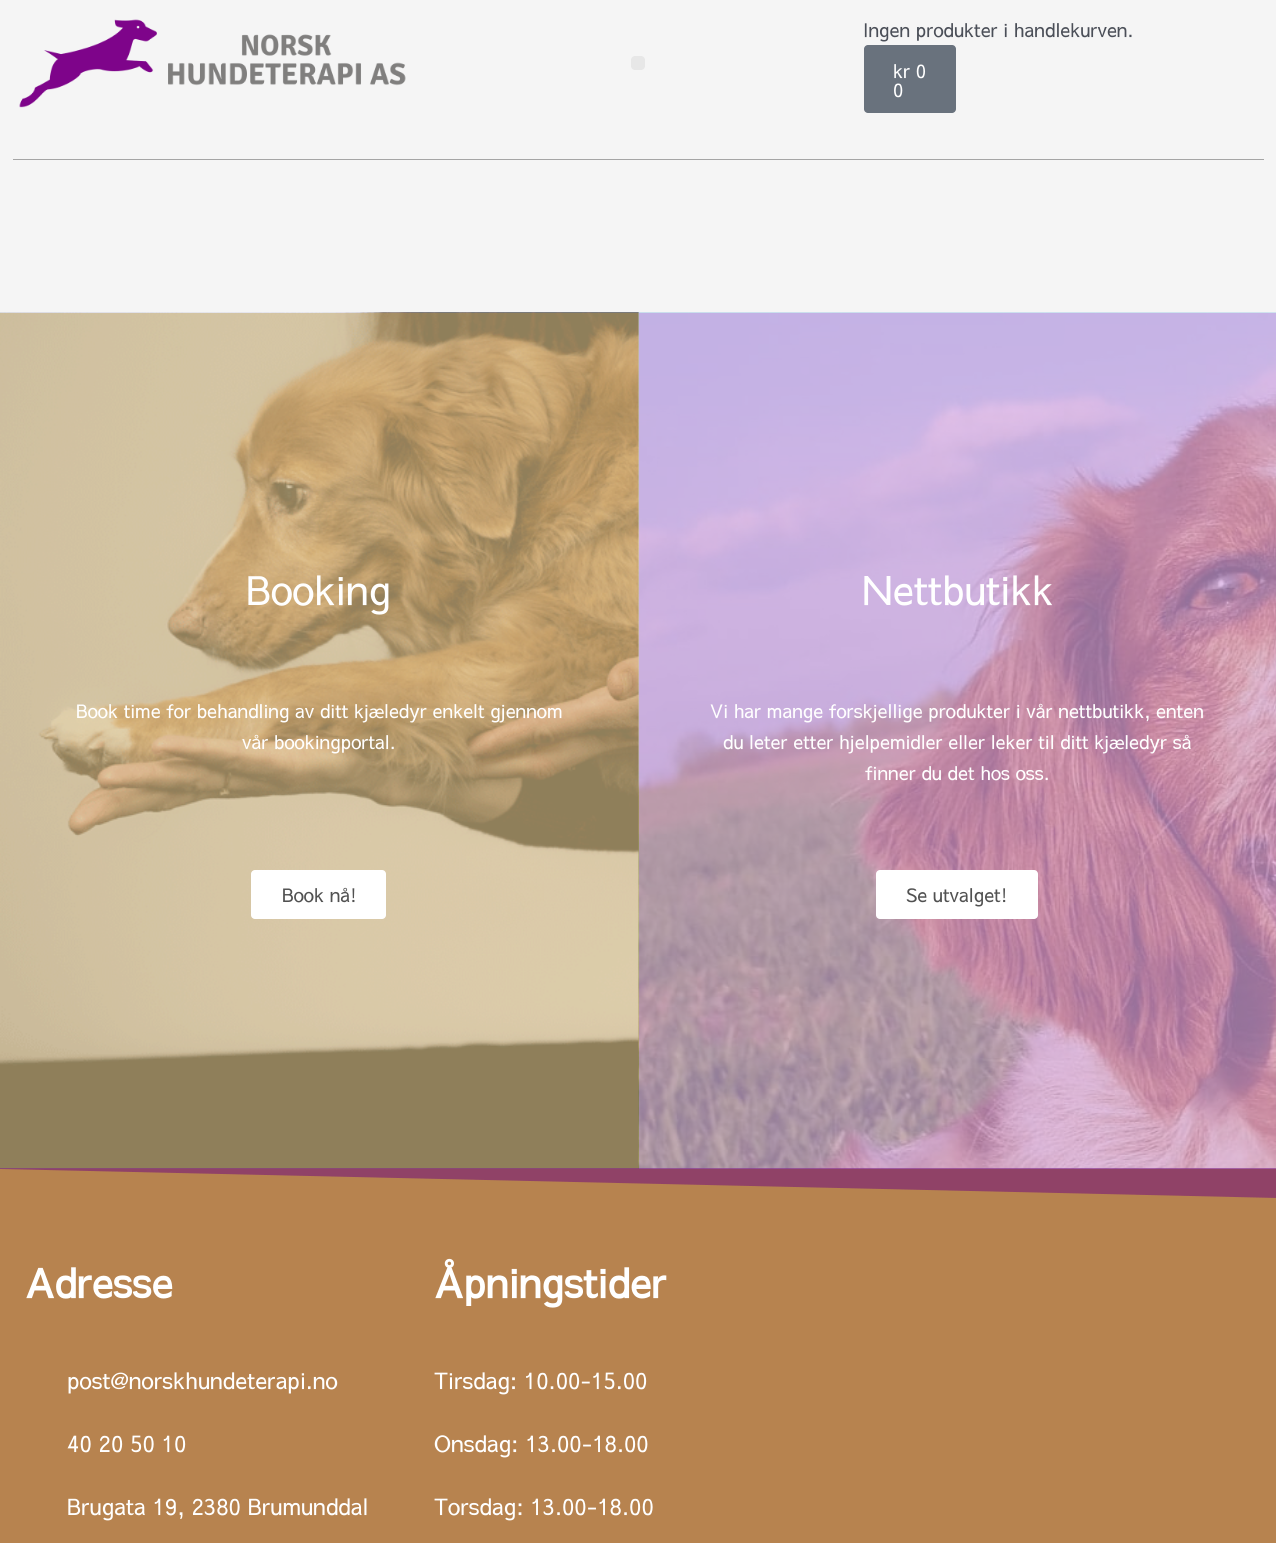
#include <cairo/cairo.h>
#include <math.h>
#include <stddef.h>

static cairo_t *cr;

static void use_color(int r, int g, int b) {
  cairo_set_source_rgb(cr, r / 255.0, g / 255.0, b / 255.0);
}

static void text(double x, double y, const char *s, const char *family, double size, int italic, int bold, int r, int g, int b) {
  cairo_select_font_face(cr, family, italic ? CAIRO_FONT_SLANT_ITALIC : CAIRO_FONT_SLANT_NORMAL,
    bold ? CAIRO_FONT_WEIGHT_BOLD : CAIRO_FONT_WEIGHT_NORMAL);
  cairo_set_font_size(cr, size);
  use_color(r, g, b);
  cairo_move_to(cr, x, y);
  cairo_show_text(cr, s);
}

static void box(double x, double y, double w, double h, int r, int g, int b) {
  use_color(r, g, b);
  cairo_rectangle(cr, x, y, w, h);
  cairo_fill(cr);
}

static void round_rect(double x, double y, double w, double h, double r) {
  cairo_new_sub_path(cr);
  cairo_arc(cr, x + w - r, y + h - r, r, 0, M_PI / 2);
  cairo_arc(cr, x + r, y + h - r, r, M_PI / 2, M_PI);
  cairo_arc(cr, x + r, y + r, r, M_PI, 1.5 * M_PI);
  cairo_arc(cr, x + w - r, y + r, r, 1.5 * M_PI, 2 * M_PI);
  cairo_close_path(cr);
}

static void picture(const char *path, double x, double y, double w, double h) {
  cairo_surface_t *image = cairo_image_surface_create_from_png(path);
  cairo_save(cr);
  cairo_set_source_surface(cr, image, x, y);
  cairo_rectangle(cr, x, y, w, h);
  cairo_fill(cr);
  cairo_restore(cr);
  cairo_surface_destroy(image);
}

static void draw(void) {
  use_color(245, 245, 245);
  cairo_paint(cr);
  box(0, 313, 639, 856, 221, 206, 169);
  picture("img_01.png", 19, 19, 387, 89);
  use_color(231, 231, 231);
  round_rect(631, 56, 14, 14, 4);
  cairo_fill(cr);
  use_color(105, 114, 125);
  round_rect(864, 45, 92, 68, 4);
  cairo_fill(cr);
  box(13, 159, 1251, 1, 165, 165, 165);
  picture("img_02.png", 0, 312, 639, 857);
  use_color(255, 255, 255);
  round_rect(251, 870, 135, 49, 4);
  cairo_fill(cr);
  picture("img_03.png", 638, 312, 638, 857);
  round_rect(876, 870, 162, 49, 4);
  cairo_fill(cr);
  box(0, 1169, 1276, 374, 183, 131, 79);
  cairo_set_source_rgba(cr, 0.451, 0.059, 0.478, 0.56);
  cairo_new_path(cr);
  cairo_move_to(cr, 0, 1169);
  cairo_line_to(cr, 0, 1168);
  cairo_line_to(cr, 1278, 1168);
  cairo_line_to(cr, 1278, 1198);
  cairo_close_path(cr);
  cairo_fill(cr);
  text(863, 37, "Ingen produkter i handlekurven.", "Sawarabi Gothic", 18.75, 0, 0, 75, 79, 88);
  text(893, 78, "kr 0", "Sawarabi Gothic", 18.75, 0, 0, 255, 255, 255);
  text(893, 97, "0", "Sawarabi Gothic", 18.75, 0, 0, 255, 255, 255);
  text(246, 605, "Booking", "Sawarabi Gothic", 40, 0, 0, 255, 255, 255);
  text(76, 718, "Book time for behandling av ditt kjæledyr enkelt gjennom", "Sawarabi Gothic", 18.75, 0, 0, 255, 255, 255);
  text(242, 749, "vår bookingportal.", "Sawarabi Gothic", 18.75, 0, 0, 255, 255, 255);
  text(282, 902, "Book nå!", "Sawarabi Gothic", 18.75, 0, 0, 81, 81, 81);
  text(862, 605, "Nettbutikk", "Sawarabi Gothic", 40, 0, 0, 255, 255, 255);
  text(710, 718, "Vi har mange forskjellige produkter i vår nettbutikk, enten", "Sawarabi Gothic", 18.75, 0, 0, 255, 255, 255);
  text(723, 749, "du leter etter hjelpemidler eller leker til ditt kjæledyr så", "Sawarabi Gothic", 18.75, 0, 0, 255, 255, 255);
  text(865, 780, "finner du det hos oss.", "Sawarabi Gothic", 18.75, 0, 0, 255, 255, 255);
  text(906, 902, "Se utvalget!", "Sawarabi Gothic", 18.75, 0, 0, 81, 81, 81);
  text(25, 1298, "Adresse", "Sawarabi Gothic", 40, 0, 1, 255, 255, 255);
  text(67, 1389, "post@norskhundeterapi.no", "Sawarabi Gothic", 22.5, 0, 0, 255, 255, 255);
  text(67, 1452, "40 20 50 10", "Sawarabi Gothic", 22.5, 0, 0, 255, 255, 255);
  text(67, 1515, "Brugata 19, 2380 Brumunddal", "Sawarabi Gothic", 22.5, 0, 0, 255, 255, 255);
  text(434, 1298, "Åpningstider", "Sawarabi Gothic", 40, 0, 1, 255, 255, 255);
  text(434, 1389, "Tirsdag: 10.00-15.00", "Sawarabi Gothic", 22.5, 0, 0, 255, 255, 255);
  text(434, 1452, "Onsdag: 13.00-18.00", "Sawarabi Gothic", 22.5, 0, 0, 255, 255, 255);
  text(434, 1515, "Torsdag: 13.00-18.00", "Sawarabi Gothic", 22.5, 0, 0, 255, 255, 255);
}

int main(void) {
  cairo_surface_t *surface = cairo_image_surface_create(CAIRO_FORMAT_RGB24, 1276, 1543);
  cr = cairo_create(surface);
  cairo_font_options_t *options = cairo_font_options_create();
  cairo_font_options_set_hint_metrics(options, CAIRO_HINT_METRICS_OFF);
  cairo_font_options_set_hint_style(options, CAIRO_HINT_STYLE_NONE);
  cairo_set_font_options(cr, options);
  cairo_set_miter_limit(cr, 4);
  draw();
  cairo_surface_write_to_png(surface, "out.png");
  cairo_font_options_destroy(options);
  cairo_destroy(cr);
  cairo_surface_destroy(surface);
  return 0;
}
